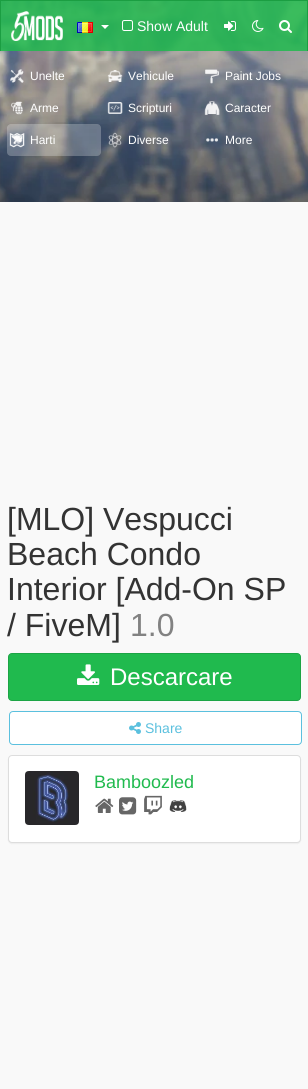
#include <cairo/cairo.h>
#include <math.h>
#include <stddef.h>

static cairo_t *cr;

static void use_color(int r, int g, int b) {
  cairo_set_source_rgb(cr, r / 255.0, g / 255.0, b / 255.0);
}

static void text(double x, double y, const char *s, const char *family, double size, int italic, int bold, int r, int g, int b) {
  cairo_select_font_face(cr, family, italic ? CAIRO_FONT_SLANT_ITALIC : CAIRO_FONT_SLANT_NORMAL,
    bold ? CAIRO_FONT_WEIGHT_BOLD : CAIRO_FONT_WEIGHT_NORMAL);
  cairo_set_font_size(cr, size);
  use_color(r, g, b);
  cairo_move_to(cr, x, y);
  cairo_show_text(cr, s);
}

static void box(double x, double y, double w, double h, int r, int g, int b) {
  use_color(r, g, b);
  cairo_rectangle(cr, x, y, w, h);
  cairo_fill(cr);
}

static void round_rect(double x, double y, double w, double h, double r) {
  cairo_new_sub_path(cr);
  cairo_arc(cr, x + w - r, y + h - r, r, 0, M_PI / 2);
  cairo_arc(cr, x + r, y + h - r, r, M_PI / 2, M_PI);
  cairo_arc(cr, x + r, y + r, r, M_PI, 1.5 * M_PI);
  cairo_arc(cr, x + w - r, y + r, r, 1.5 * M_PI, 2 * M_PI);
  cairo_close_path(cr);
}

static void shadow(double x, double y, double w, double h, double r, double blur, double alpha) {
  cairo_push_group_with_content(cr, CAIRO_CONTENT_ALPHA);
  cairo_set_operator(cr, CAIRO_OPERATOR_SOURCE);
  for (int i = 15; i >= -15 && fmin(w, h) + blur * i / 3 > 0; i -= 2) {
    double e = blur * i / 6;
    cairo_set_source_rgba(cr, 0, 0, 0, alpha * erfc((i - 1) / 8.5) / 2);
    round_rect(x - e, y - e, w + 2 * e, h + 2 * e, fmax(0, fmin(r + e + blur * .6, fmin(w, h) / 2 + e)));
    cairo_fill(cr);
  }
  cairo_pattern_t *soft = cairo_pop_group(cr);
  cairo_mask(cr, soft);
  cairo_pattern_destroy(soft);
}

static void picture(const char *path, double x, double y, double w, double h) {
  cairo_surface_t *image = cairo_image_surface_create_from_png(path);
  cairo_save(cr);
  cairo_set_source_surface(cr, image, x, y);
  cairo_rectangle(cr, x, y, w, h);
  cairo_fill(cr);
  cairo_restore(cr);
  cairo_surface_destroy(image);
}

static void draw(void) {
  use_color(249, 249, 249);
  cairo_paint(cr);
  picture("img_07.png", 0, 1, 308, 201);
  cairo_set_source_rgba(cr, 0.125, 0.729, 0.306, 0.85);
  cairo_rectangle(cr, 1, 1, 306, 50);
  cairo_fill(cr);
  box(0, 0, 308, 1, 27, 158, 66);
  box(307, 0, 1, 51, 27, 158, 66);
  box(0, 0, 1, 51, 27, 158, 66);
  picture("img_01.png", 11, 11, 52, 30);
  picture("img_02.png", 77, 22, 16, 11);
  use_color(255, 255, 255);
  cairo_new_path(cr);
  cairo_move_to(cr, 101, 25);
  cairo_line_to(cr, 109, 25);
  cairo_line_to(cr, 105, 29);
  cairo_close_path(cr);
  cairo_fill(cr);
  picture("img_03.png", 122, 20, 11, 11);
  picture("img_04.png", 224, 21, 12, 10);
  picture("img_05.png", 252, 20, 12, 12);
  picture("img_06.png", 279, 20, 13, 13);
  picture("img_08.png", 10, 69, 14, 14);
  picture("img_09.png", 107, 70, 16, 12);
  picture("img_10.png", 205, 69, 14, 15);
  picture("img_11.png", 11, 101, 12, 14);
  picture("img_12.png", 107, 102, 16, 12);
  picture("img_13.png", 204, 101, 16, 14);
  cairo_set_source_rgba(cr, 1, 1, 1, 0.25);
  round_rect(7, 124, 94, 32, 4);
  cairo_fill(cr);
  picture("img_14.png", 9, 133, 16, 15);
  picture("img_15.png", 108, 132, 14, 16);
  picture("img_16.png", 206, 138, 12, 4);
  use_color(32, 186, 78);
  round_rect(8.5, 653.5, 292, 47, 3.5);
  cairo_fill_preserve(cr);
  use_color(28, 164, 69);
  cairo_set_line_width(cr, 1);
  cairo_stroke(cr);
  picture("img_17.png", 77, 664, 23, 21);
  use_color(255, 255, 255);
  round_rect(9.5, 711.5, 292, 33, 3.5);
  cairo_fill_preserve(cr);
  use_color(91, 192, 222);
  cairo_stroke(cr);
  picture("img_18.png", 129, 722, 12, 12);
  use_color(0, 0, 0);
  shadow(8, 756, 293, 88, 4, 0.5, 0.05);
  use_color(255, 255, 255);
  round_rect(8.5, 755.5, 292, 87, 3.5);
  cairo_fill_preserve(cr);
  use_color(221, 221, 221);
  cairo_stroke(cr);
  picture("img_19.png", 25, 771, 54, 54);
  picture("img_20.png", 95, 798, 19, 15);
  picture("img_21.png", 119, 797, 18, 18);
  picture("img_22.png", 144, 795, 18, 20);
  picture("img_23.png", 169, 800, 18, 12);
  text(137, 31, "Show Adult", "Liberation Sans", 14, 0, 0, 255, 255, 255);
  text(30, 80, "Unelte", "Liberation Sans", 12, 0, 0, 255, 255, 255);
  text(128, 80, "Vehicule", "Liberation Sans", 12, 0, 0, 255, 255, 255);
  text(225, 80, "Paint Jobs", "Liberation Sans", 12, 0, 0, 255, 255, 255);
  text(30, 112, "Arme", "Liberation Sans", 12, 0, 0, 255, 255, 255);
  text(128, 112, "Scripturi", "Liberation Sans", 12, 0, 0, 255, 255, 255);
  text(225, 112, "Caracter", "Liberation Sans", 12, 0, 0, 255, 255, 255);
  text(30, 144, "Harti", "Liberation Sans", 12, 0, 0, 255, 255, 255);
  text(128, 144, "Diverse", "Liberation Sans", 12, 0, 0, 255, 255, 255);
  text(225, 144, "More", "Liberation Sans", 12, 0, 0, 255, 255, 255);
  text(7, 530, "[MLO] Vespucci", "Liberation Sans", 32, 0, 0, 51, 51, 51);
  text(7, 565, "Beach Condo", "Liberation Sans", 32, 0, 0, 51, 51, 51);
  text(7, 600, "Interior [Add-On SP", "Liberation Sans", 32, 0, 0, 51, 51, 51);
  text(7, 636, "/ FiveM]", "Liberation Sans", 32, 0, 0, 51, 51, 51);
  text(130, 636, "1.0", "Liberation Sans", 32, 0, 0, 130, 130, 130);
  text(110, 685, "Descarcare", "Liberation Sans", 24, 0, 0, 255, 255, 255);
  text(145, 733, "Share", "Liberation Sans", 14, 0, 0, 91, 192, 222);
  text(94, 788, "Bamboozled", "Liberation Sans", 18, 0, 0, 32, 186, 78);
}

int main(void) {
  cairo_surface_t *surface = cairo_image_surface_create(CAIRO_FORMAT_RGB24, 308, 1089);
  cr = cairo_create(surface);
  cairo_font_options_t *options = cairo_font_options_create();
  cairo_font_options_set_hint_metrics(options, CAIRO_HINT_METRICS_OFF);
  cairo_font_options_set_hint_style(options, CAIRO_HINT_STYLE_NONE);
  cairo_set_font_options(cr, options);
  cairo_set_miter_limit(cr, 4);
  draw();
  cairo_surface_write_to_png(surface, "out.png");
  cairo_font_options_destroy(options);
  cairo_destroy(cr);
  cairo_surface_destroy(surface);
  return 0;
}
